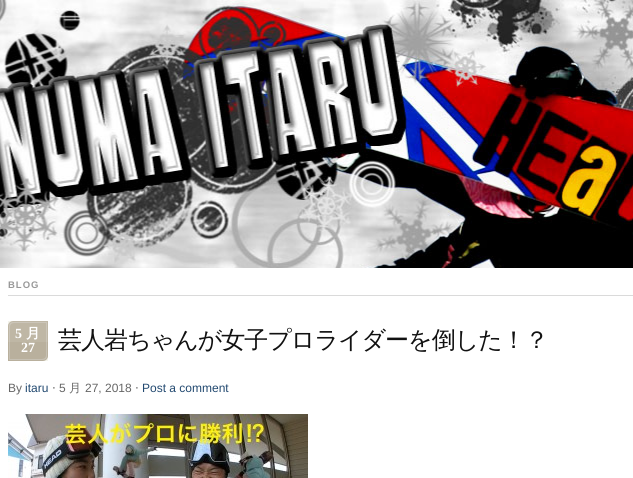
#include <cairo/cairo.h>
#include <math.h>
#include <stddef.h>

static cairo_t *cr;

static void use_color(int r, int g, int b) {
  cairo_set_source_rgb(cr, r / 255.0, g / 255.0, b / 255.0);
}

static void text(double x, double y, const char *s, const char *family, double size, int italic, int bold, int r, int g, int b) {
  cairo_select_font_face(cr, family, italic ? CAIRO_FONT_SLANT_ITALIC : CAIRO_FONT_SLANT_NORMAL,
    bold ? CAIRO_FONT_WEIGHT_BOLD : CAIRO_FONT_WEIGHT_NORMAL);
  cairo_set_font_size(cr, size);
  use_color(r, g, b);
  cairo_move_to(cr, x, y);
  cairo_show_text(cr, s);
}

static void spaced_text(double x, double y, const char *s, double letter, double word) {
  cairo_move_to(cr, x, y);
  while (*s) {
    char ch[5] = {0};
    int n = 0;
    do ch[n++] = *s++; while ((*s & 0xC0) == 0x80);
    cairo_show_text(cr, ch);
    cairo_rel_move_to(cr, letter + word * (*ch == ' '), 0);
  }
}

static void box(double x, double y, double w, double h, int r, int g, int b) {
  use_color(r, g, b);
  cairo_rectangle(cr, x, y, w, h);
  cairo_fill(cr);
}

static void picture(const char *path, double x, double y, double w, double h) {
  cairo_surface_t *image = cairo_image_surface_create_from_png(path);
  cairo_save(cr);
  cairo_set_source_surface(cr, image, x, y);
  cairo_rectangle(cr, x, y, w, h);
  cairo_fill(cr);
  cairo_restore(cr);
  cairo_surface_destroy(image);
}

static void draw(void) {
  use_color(255, 255, 255);
  cairo_paint(cr);
  picture("img_01.png", 0, 0, 633, 268);
  box(8, 295, 625, 1, 218, 218, 218);
  picture("img_02.png", 8, 321, 40, 40);
  picture("img_03.png", 8, 414, 300, 64);
  cairo_select_font_face(cr, "Liberation Sans", CAIRO_FONT_SLANT_NORMAL, CAIRO_FONT_WEIGHT_BOLD);
  cairo_set_font_size(cr, 9.5);
  use_color(153, 153, 153);
  spaced_text(8, 288, "BLOG", 1, 0);
  text(15, 338, "5", "Liberation Serif", 14, 0, 1, 255, 255, 255);
  text(26, 338, "月", "WenQuanYi Zen Hei", 14, 0, 1, 255, 255, 255);
  text(21, 352, "27", "Liberation Serif", 14, 0, 1, 255, 255, 255);
  cairo_select_font_face(cr, "WenQuanYi Zen Hei Medium", CAIRO_FONT_SLANT_NORMAL, CAIRO_FONT_WEIGHT_NORMAL);
  cairo_set_font_size(cr, 24);
  use_color(17, 17, 17);
  spaced_text(58, 348, "芸人岩ちゃんが女子プロライダーを倒した！？", -1, 0);
  text(8, 392, "By", "Liberation Sans", 12, 0, 0, 102, 102, 102);
  text(25, 392, "itaru", "Liberation Sans", 12, 0, 0, 34, 73, 112);
  text(52, 392, "⋅", "DejaVu Sans", 12, 0, 0, 102, 102, 102);
  text(59, 392, "5", "Liberation Sans", 12, 0, 0, 102, 102, 102);
  text(69, 392, "月", "WenQuanYi Zen Hei Medium", 12, 0, 0, 102, 102, 102);
  text(85, 392, "27, 2018", "Liberation Sans", 12, 0, 0, 102, 102, 102);
  text(135, 392, "⋅", "DejaVu Sans", 12, 0, 0, 102, 102, 102);
  text(142, 392, "Post a comment", "Liberation Sans", 12, 0, 0, 34, 73, 112);
}

int main(void) {
  cairo_surface_t *surface = cairo_image_surface_create(CAIRO_FORMAT_RGB24, 633, 478);
  cr = cairo_create(surface);
  cairo_font_options_t *options = cairo_font_options_create();
  cairo_font_options_set_hint_metrics(options, CAIRO_HINT_METRICS_OFF);
  cairo_font_options_set_hint_style(options, CAIRO_HINT_STYLE_NONE);
  cairo_set_font_options(cr, options);
  cairo_set_miter_limit(cr, 4);
  draw();
  cairo_surface_write_to_png(surface, "out.png");
  cairo_font_options_destroy(options);
  cairo_destroy(cr);
  cairo_surface_destroy(surface);
  return 0;
}
